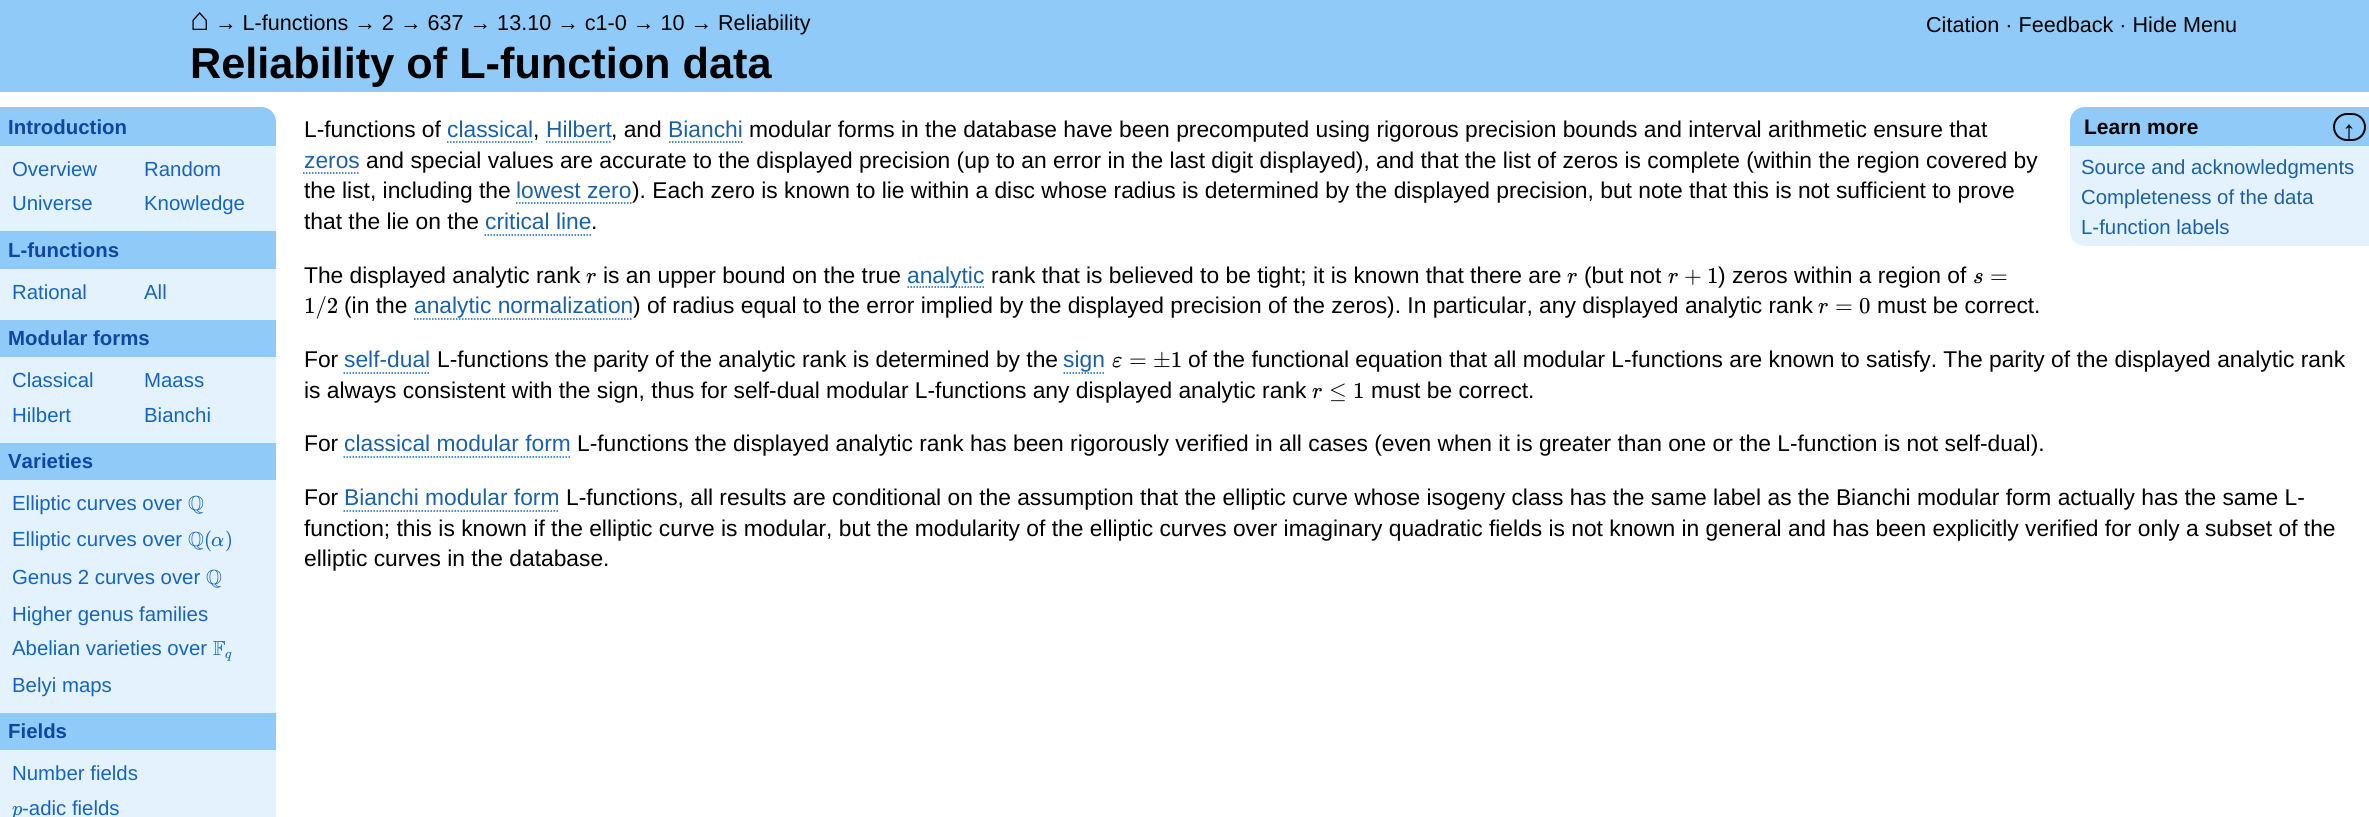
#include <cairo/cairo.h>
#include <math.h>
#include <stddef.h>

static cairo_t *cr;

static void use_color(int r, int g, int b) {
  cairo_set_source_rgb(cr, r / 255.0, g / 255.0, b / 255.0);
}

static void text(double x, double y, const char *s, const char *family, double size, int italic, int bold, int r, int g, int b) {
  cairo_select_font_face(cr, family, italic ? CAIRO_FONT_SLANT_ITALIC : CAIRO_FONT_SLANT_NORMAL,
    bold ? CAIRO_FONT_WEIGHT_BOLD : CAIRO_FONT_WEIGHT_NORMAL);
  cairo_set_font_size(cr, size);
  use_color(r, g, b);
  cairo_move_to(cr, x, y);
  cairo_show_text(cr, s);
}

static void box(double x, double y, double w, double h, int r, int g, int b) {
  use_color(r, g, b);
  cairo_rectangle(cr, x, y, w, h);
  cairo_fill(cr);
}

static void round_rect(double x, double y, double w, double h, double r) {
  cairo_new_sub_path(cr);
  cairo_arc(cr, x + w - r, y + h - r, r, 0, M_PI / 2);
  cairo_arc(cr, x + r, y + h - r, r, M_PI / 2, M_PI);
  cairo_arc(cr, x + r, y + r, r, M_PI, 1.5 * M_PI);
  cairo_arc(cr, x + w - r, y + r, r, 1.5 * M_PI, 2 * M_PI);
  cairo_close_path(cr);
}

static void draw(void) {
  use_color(255, 255, 255);
  cairo_paint(cr);
  box(0, 0, 2369, 92, 144, 202, 249);
  use_color(227, 242, 253);
  cairo_new_path(cr);
  cairo_move_to(cr, 0, 107);
  cairo_line_to(cr, 261, 107);
  cairo_curve_to(cr, 269.5, 107, 276, 113.5, 276, 122);
  cairo_line_to(cr, 276, 817);
  cairo_curve_to(cr, 276, 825.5, 269.5, 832, 261, 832);
  cairo_line_to(cr, 0, 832);
  cairo_close_path(cr);
  cairo_fill(cr);
  use_color(144, 202, 249);
  cairo_new_path(cr);
  cairo_move_to(cr, 0, 107);
  cairo_line_to(cr, 261, 107);
  cairo_curve_to(cr, 269.5, 107, 276, 113.5, 276, 122);
  cairo_line_to(cr, 276, 146);
  cairo_line_to(cr, 0, 146);
  cairo_close_path(cr);
  cairo_fill(cr);
  box(0, 231, 276, 38, 144, 202, 249);
  box(0, 320, 276, 37, 144, 202, 249);
  box(0, 443, 276, 37, 144, 202, 249);
  box(0, 713, 276, 37, 144, 202, 249);
  cairo_new_path(cr);
  cairo_move_to(cr, 2085, 107);
  cairo_line_to(cr, 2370, 107);
  cairo_line_to(cr, 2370, 146);
  cairo_line_to(cr, 2070, 146);
  cairo_line_to(cr, 2070, 122);
  cairo_curve_to(cr, 2070, 113.5, 2076.5, 107, 2085, 107);
  cairo_close_path(cr);
  cairo_fill(cr);
  round_rect(2334, 114, 31, 26, 13);
  use_color(0, 0, 0);
  cairo_stroke(cr);
  use_color(227, 242, 253);
  cairo_new_path(cr);
  cairo_move_to(cr, 2070, 146);
  cairo_line_to(cr, 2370, 146);
  cairo_line_to(cr, 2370, 246);
  cairo_line_to(cr, 2085, 246);
  cairo_curve_to(cr, 2076.5, 246, 2070, 239.5, 2070, 231);
  cairo_close_path(cr);
  cairo_fill(cr);
  cairo_new_path(cr);
  cairo_move_to(cr, 447, 142);
  cairo_line_to(cr, 532.5, 142);
  use_color(21, 101, 192);
  cairo_set_line_width(cr, 1.5);
  cairo_set_dash(cr, (double[]){1.5, 1.5}, 2, 0);
  cairo_stroke(cr);
  cairo_new_path(cr);
  cairo_move_to(cr, 546, 142);
  cairo_line_to(cr, 612, 142);
  cairo_stroke(cr);
  cairo_new_path(cr);
  cairo_move_to(cr, 669, 142);
  cairo_line_to(cr, 742.5, 142);
  cairo_stroke(cr);
  cairo_new_path(cr);
  cairo_move_to(cr, 303, 173);
  cairo_line_to(cr, 360, 173);
  cairo_stroke(cr);
  cairo_new_path(cr);
  cairo_move_to(cr, 484.5, 235);
  cairo_line_to(cr, 591, 235);
  cairo_stroke(cr);
  cairo_new_path(cr);
  cairo_move_to(cr, 907.5, 287);
  cairo_line_to(cr, 984, 287);
  cairo_stroke(cr);
  cairo_new_path(cr);
  cairo_move_to(cr, 414, 319);
  cairo_line_to(cr, 633, 319);
  cairo_stroke(cr);
  cairo_new_path(cr);
  cairo_move_to(cr, 343.5, 373);
  cairo_line_to(cr, 430.5, 373);
  cairo_stroke(cr);
  cairo_new_path(cr);
  cairo_move_to(cr, 1063.5, 373);
  cairo_line_to(cr, 1105.5, 373);
  cairo_stroke(cr);
  cairo_new_path(cr);
  cairo_move_to(cr, 343.5, 457);
  cairo_line_to(cr, 571.5, 457);
  cairo_stroke(cr);
  cairo_new_path(cr);
  cairo_move_to(cr, 343.5, 511);
  cairo_line_to(cr, 559.5, 511);
  cairo_stroke(cr);
  text(190, 30, "⌂", "Liberation Sans", 32, 0, 0, 0, 0, 0);
  text(215, 30, "→ L-functions → 2 → 637 → 13.10 → c1-0 → 10 → Reliability", "Liberation Sans", 21.6, 0, 0, 0, 0, 0);
  text(1926, 32, "Citation · Feedback · Hide Menu", "Liberation Sans", 21.6, 0, 0, 0, 0, 0);
  text(190, 78, "Reliability of L-function data", "Liberation Sans", 43.25, 0, 1, 0, 0, 0);
  text(8, 134, "Introduction", "Liberation Sans", 20.4, 0, 1, 13, 71, 161);
  text(12, 176, "Overview", "Liberation Sans", 20.4, 0, 0, 21, 101, 192);
  text(144, 176, "Random", "Liberation Sans", 20.4, 0, 0, 21, 101, 192);
  text(12, 210, "Universe", "Liberation Sans", 20.4, 0, 0, 21, 101, 192);
  text(144, 210, "Knowledge", "Liberation Sans", 20.4, 0, 0, 21, 101, 192);
  text(8, 257, "L-functions", "Liberation Sans", 20.4, 0, 1, 13, 71, 161);
  text(12, 299, "Rational", "Liberation Sans", 20.4, 0, 0, 21, 101, 192);
  text(144, 299, "All", "Liberation Sans", 20.4, 0, 0, 21, 101, 192);
  text(8, 345, "Modular forms", "Liberation Sans", 20.4, 0, 1, 13, 71, 161);
  text(12, 387, "Classical", "Liberation Sans", 20.4, 0, 0, 21, 101, 192);
  text(144, 387, "Maass", "Liberation Sans", 20.4, 0, 0, 21, 101, 192);
  text(12, 422, "Hilbert", "Liberation Sans", 20.4, 0, 0, 21, 101, 192);
  text(144, 422, "Bianchi", "Liberation Sans", 20.4, 0, 0, 21, 101, 192);
  text(8, 468, "Varieties", "Liberation Sans", 20.4, 0, 1, 13, 71, 161);
  text(12, 510, "Elliptic curves over", "Liberation Sans", 20.4, 0, 0, 21, 101, 192);
  text(188, 510, "Q", "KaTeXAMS", 20.4, 0, 0, 21, 101, 192);
  text(12, 546, "Elliptic curves over", "Liberation Sans", 20.4, 0, 0, 21, 101, 192);
  text(188, 546, "Q", "KaTeXAMS", 20.4, 0, 0, 21, 101, 192);
  text(204, 546, "(", "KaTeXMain", 20.4, 0, 0, 21, 101, 192);
  text(211, 546, "α", "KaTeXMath", 20.4, 1, 0, 21, 101, 192);
  text(225, 546, ")", "KaTeXMain", 20.4, 0, 0, 21, 101, 192);
  text(12, 584, "Genus 2 curves over", "Liberation Sans", 20.4, 0, 0, 21, 101, 192);
  text(206, 584, "Q", "KaTeXAMS", 20.4, 0, 0, 21, 101, 192);
  text(12, 621, "Higher genus families", "Liberation Sans", 20.4, 0, 0, 21, 101, 192);
  text(12, 655, "Abelian varieties over", "Liberation Sans", 20.4, 0, 0, 21, 101, 192);
  text(213, 655, "F", "KaTeXAMS", 20.4, 0, 0, 21, 101, 192);
  text(225, 658, "q", "KaTeXMath", 14, 1, 0, 21, 101, 192);
  text(12, 692, "Belyi maps", "Liberation Sans", 20.4, 0, 0, 21, 101, 192);
  text(8, 738, "Fields", "Liberation Sans", 20.4, 0, 1, 13, 71, 161);
  text(12, 780, "Number fields", "Liberation Sans", 20.4, 0, 0, 21, 101, 192);
  text(12, 815, "p", "KaTeXMath", 20.4, 1, 0, 21, 101, 192);
  text(22, 815, "-adic fields", "Liberation Sans", 20.4, 0, 0, 21, 101, 192);
  text(2084, 134, "Learn more", "Liberation Sans", 21, 0, 1, 0, 0, 0);
  text(2342, 140, "↑", "Liberation Sans", 28, 0, 1, 0, 0, 0);
  text(2081, 174, "Source and acknowledgments", "Liberation Sans", 20.4, 0, 0, 28, 97, 166);
  text(2081, 204, "Completeness of the data", "Liberation Sans", 20.4, 0, 0, 28, 97, 166);
  text(2081, 234, "L-function labels", "Liberation Sans", 20.4, 0, 0, 28, 97, 166);
  text(304, 137, "L-functions of", "Liberation Sans", 22.8, 0, 0, 0, 0, 0);
  text(447, 137, "classical", "Liberation Sans", 22.8, 0, 0, 28, 97, 166);
  text(533, 137, ",", "Liberation Sans", 22.8, 0, 0, 0, 0, 0);
  text(546, 137, "Hilbert", "Liberation Sans", 22.8, 0, 0, 28, 97, 166);
  text(611, 137, ", and", "Liberation Sans", 22.8, 0, 0, 0, 0, 0);
  text(668, 137, "Bianchi", "Liberation Sans", 22.8, 0, 0, 28, 97, 166);
  text(749, 137, "modular forms in the database have been precomputed using rigorous precision bounds and interval arithmetic ensure that", "Liberation Sans", 22.8, 0, 0, 0, 0, 0);
  text(304, 168, "zeros", "Liberation Sans", 22.8, 0, 0, 28, 97, 166);
  text(366, 168, "and special values are accurate to the displayed precision (up to an error in the last digit displayed), and that the list of zeros is complete (within the region covered by", "Liberation Sans", 22.8, 0, 0, 0, 0, 0);
  text(304, 198, "the list, including the", "Liberation Sans", 22.8, 0, 0, 0, 0, 0);
  text(516, 198, "lowest zero", "Liberation Sans", 22.8, 0, 0, 28, 97, 166);
  text(632, 198, "). Each zero is known to lie within a disc whose radius is determined by the displayed precision, but note that this is not sufficient to prove", "Liberation Sans", 22.8, 0, 0, 0, 0, 0);
  cairo_new_path(cr);
  cairo_move_to(cr, 516, 203);
  cairo_line_to(cr, 631.5, 203);
  use_color(21, 101, 192);
  cairo_stroke(cr);
  text(304, 229, "that the lie on the", "Liberation Sans", 22.8, 0, 0, 0, 0, 0);
  text(485, 229, "critical line", "Liberation Sans", 22.8, 0, 0, 28, 97, 166);
  text(591, 229, ".", "Liberation Sans", 22.8, 0, 0, 0, 0, 0);
  text(304, 283, "The displayed analytic rank", "Liberation Sans", 22.8, 0, 0, 0, 0, 0);
  text(603, 283, "is an upper bound on the true", "Liberation Sans", 22.8, 0, 0, 0, 0, 0);
  text(907, 283, "analytic", "Liberation Sans", 22.8, 0, 0, 28, 97, 166);
  text(991, 283, "rank that is believed to be tight; it is known that there are", "Liberation Sans", 22.8, 0, 0, 0, 0, 0);
  text(1584, 283, "(but not", "Liberation Sans", 22.8, 0, 0, 0, 0, 0);
  text(1668, 283, "r", "KaTeXMath", 22.8, 1, 0, 0, 0, 0);
  text(1684, 283, "+", "KaTeXMain", 22.8, 0, 0, 0, 0, 0);
  text(1707, 283, "1", "KaTeXMain", 22.8, 0, 0, 0, 0, 0);
  text(1718, 283, ") zeros within a region of", "Liberation Sans", 22.8, 0, 0, 0, 0, 0);
  text(1973, 283, "s", "KaTeXMath", 22.8, 1, 0, 0, 0, 0);
  text(1990, 283, "=", "KaTeXMain", 22.8, 0, 0, 0, 0, 0);
  text(304, 313, "1/2", "KaTeXMain", 22.8, 0, 0, 0, 0, 0);
  text(586, 283, "r", "KaTeXMath", 22.8, 1, 0, 0, 0, 0);
  text(1567, 283, "r", "KaTeXMath", 22.8, 1, 0, 0, 0, 0);
  text(344, 313, "(in the", "Liberation Sans", 22.8, 0, 0, 0, 0, 0);
  text(414, 313, "analytic normalization", "Liberation Sans", 22.8, 0, 0, 28, 97, 166);
  text(633, 313, ") of radius equal to the error implied by the displayed precision of the zeros). In particular, any displayed analytic rank", "Liberation Sans", 22.8, 0, 0, 0, 0, 0);
  text(1818, 313, "r", "KaTeXMath", 22.8, 1, 0, 0, 0, 0);
  text(1835, 313, "=", "KaTeXMain", 22.8, 0, 0, 0, 0, 0);
  text(1859, 313, "0", "KaTeXMain", 22.8, 0, 0, 0, 0, 0);
  text(1877, 313, "must be correct.", "Liberation Sans", 22.8, 0, 0, 0, 0, 0);
  text(304, 367, "For", "Liberation Sans", 22.8, 0, 0, 0, 0, 0);
  text(344, 367, "self-dual", "Liberation Sans", 22.8, 0, 0, 28, 97, 166);
  text(437, 367, "L-functions the parity of the analytic rank is determined by the", "Liberation Sans", 22.8, 0, 0, 0, 0, 0);
  text(1063, 367, "sign", "Liberation Sans", 22.8, 0, 0, 28, 97, 166);
  text(1112, 367, "ε", "KaTeXMath", 22.8, 1, 0, 0, 0, 0);
  text(1129, 367, "=", "KaTeXMain", 22.8, 0, 0, 0, 0, 0);
  text(1153, 367, "±1", "KaTeXMain", 22.8, 0, 0, 0, 0, 0);
  text(1188, 367, "of the functional equation that all modular L-functions are known to satisfy. The parity of the displayed analytic rank", "Liberation Sans", 22.8, 0, 0, 0, 0, 0);
  text(304, 398, "is always consistent with the sign, thus for self-dual modular L-functions any displayed analytic rank", "Liberation Sans", 22.8, 0, 0, 0, 0, 0);
  text(1312, 398, "r", "KaTeXMath", 22.8, 1, 0, 0, 0, 0);
  text(1329, 398, "≤", "KaTeXMain", 22.8, 0, 0, 0, 0, 0);
  text(1353, 398, "1", "KaTeXMain", 22.8, 0, 0, 0, 0, 0);
  text(1371, 398, "must be correct.", "Liberation Sans", 22.8, 0, 0, 0, 0, 0);
  text(304, 451, "For", "Liberation Sans", 22.8, 0, 0, 0, 0, 0);
  text(344, 451, "classical modular form", "Liberation Sans", 22.8, 0, 0, 28, 97, 166);
  text(577, 451, "L-functions the displayed analytic rank has been rigorously verified in all cases (even when it is greater than one or the L-function is not self-dual).", "Liberation Sans", 22.8, 0, 0, 0, 0, 0);
  text(304, 505, "For", "Liberation Sans", 22.8, 0, 0, 0, 0, 0);
  text(344, 505, "Bianchi modular form", "Liberation Sans", 22.8, 0, 0, 28, 97, 166);
  text(566, 505, "L-functions, all results are conditional on the assumption that the elliptic curve whose isogeny class has the same label as the Bianchi modular form actually has the same L-", "Liberation Sans", 22.8, 0, 0, 0, 0, 0);
  text(304, 536, "function; this is known if the elliptic curve is modular, but the modularity of the elliptic curves over imaginary quadratic fields is not known in general and has been explicitly verified for only a subset of the", "Liberation Sans", 22.8, 0, 0, 0, 0, 0);
  text(304, 566, "elliptic curves in the database.", "Liberation Sans", 22.8, 0, 0, 0, 0, 0);
}

int main(void) {
  cairo_surface_t *surface = cairo_image_surface_create(CAIRO_FORMAT_RGB24, 2369, 817);
  cr = cairo_create(surface);
  cairo_font_options_t *options = cairo_font_options_create();
  cairo_font_options_set_hint_metrics(options, CAIRO_HINT_METRICS_OFF);
  cairo_font_options_set_hint_style(options, CAIRO_HINT_STYLE_NONE);
  cairo_set_font_options(cr, options);
  cairo_set_miter_limit(cr, 4);
  draw();
  cairo_surface_write_to_png(surface, "out.png");
  cairo_font_options_destroy(options);
  cairo_destroy(cr);
  cairo_surface_destroy(surface);
  return 0;
}
